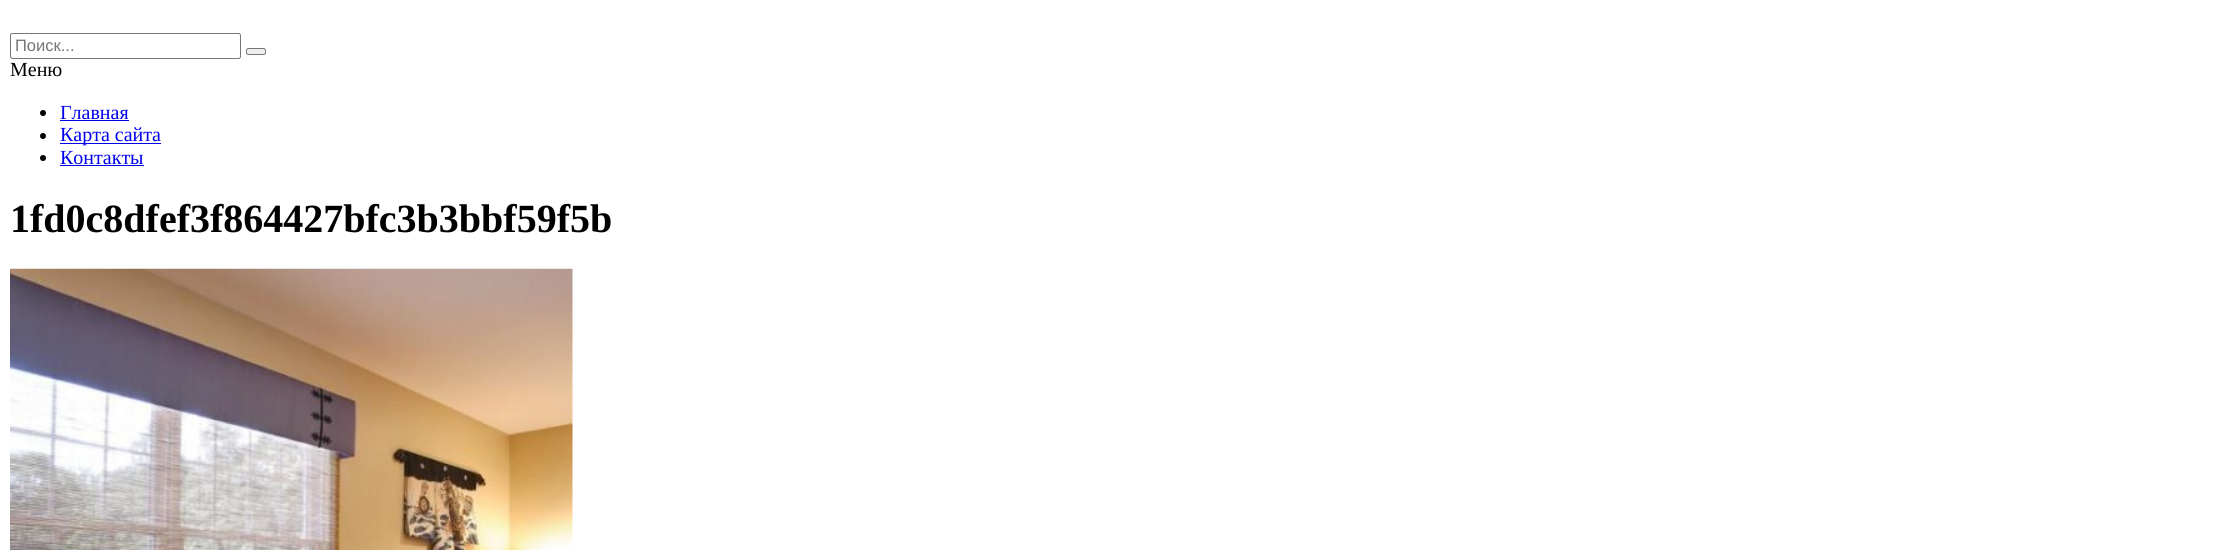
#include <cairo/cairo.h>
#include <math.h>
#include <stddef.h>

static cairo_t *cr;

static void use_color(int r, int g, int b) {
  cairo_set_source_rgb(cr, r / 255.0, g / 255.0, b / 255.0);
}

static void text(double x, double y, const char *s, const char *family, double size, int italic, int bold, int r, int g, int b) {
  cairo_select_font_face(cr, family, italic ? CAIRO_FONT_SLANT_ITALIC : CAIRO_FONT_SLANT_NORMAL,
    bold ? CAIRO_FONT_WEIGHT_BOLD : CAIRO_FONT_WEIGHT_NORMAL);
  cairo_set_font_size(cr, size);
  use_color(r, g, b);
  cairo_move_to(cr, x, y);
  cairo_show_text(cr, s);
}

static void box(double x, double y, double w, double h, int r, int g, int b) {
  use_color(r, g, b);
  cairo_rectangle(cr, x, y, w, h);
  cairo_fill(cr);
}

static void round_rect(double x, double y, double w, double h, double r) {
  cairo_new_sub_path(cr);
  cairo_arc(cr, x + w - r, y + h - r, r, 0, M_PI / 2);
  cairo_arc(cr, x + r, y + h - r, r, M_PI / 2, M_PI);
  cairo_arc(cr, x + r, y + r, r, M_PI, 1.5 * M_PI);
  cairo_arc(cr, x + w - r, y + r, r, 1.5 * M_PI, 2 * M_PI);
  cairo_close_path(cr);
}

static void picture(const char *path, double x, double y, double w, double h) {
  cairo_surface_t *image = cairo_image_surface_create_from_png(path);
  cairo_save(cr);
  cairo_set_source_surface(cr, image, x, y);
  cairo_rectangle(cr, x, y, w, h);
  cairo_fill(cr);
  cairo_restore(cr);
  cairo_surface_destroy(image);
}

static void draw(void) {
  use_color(255, 255, 255);
  cairo_paint(cr);
  round_rect(10.5, 33.5, 230, 25, 2);
  use_color(118, 118, 118);
  cairo_set_line_width(cr, 1);
  cairo_stroke(cr);
  use_color(239, 239, 239);
  round_rect(246.5, 48.5, 19, 6, 2);
  cairo_fill_preserve(cr);
  use_color(118, 118, 118);
  cairo_stroke(cr);
  use_color(0, 0, 0);
  cairo_arc(cr, 43, 113, 3, 0, 2 * M_PI);
  cairo_fill(cr);
  box(60, 120, 69, 1, 0, 0, 238);
  use_color(0, 0, 0);
  cairo_arc(cr, 43, 136, 3, 0, 2 * M_PI);
  cairo_fill(cr);
  box(60, 143, 101, 1, 0, 0, 238);
  use_color(0, 0, 0);
  cairo_arc(cr, 43, 158, 3, 0, 2 * M_PI);
  cairo_fill(cr);
  box(60, 165, 84, 1, 0, 0, 238);
  picture("img_01.png", 10, 268, 563, 282);
  text(15, 51, "Поиск...", "Liberation Sans", 16.5, 0, 0, 117, 117, 117);
  text(10, 76, "Меню", "Liberation Serif", 20, 0, 0, 0, 0, 0);
  text(60, 119, "Главная", "Liberation Serif", 20, 0, 0, 0, 0, 238);
  text(60, 141, "Карта сайта", "Liberation Serif", 20, 0, 0, 0, 0, 238);
  text(60, 164, "Контакты", "Liberation Serif", 20, 0, 0, 0, 0, 238);
  text(10, 232, "1fd0c8dfef3f864427bfc3b3bbf59f5b", "Liberation Serif", 40, 0, 1, 0, 0, 0);
}

int main(void) {
  cairo_surface_t *surface = cairo_image_surface_create(CAIRO_FORMAT_RGB24, 2220, 550);
  cr = cairo_create(surface);
  cairo_font_options_t *options = cairo_font_options_create();
  cairo_font_options_set_hint_metrics(options, CAIRO_HINT_METRICS_OFF);
  cairo_font_options_set_hint_style(options, CAIRO_HINT_STYLE_NONE);
  cairo_set_font_options(cr, options);
  cairo_set_miter_limit(cr, 4);
  draw();
  cairo_surface_write_to_png(surface, "out.png");
  cairo_font_options_destroy(options);
  cairo_destroy(cr);
  cairo_surface_destroy(surface);
  return 0;
}
